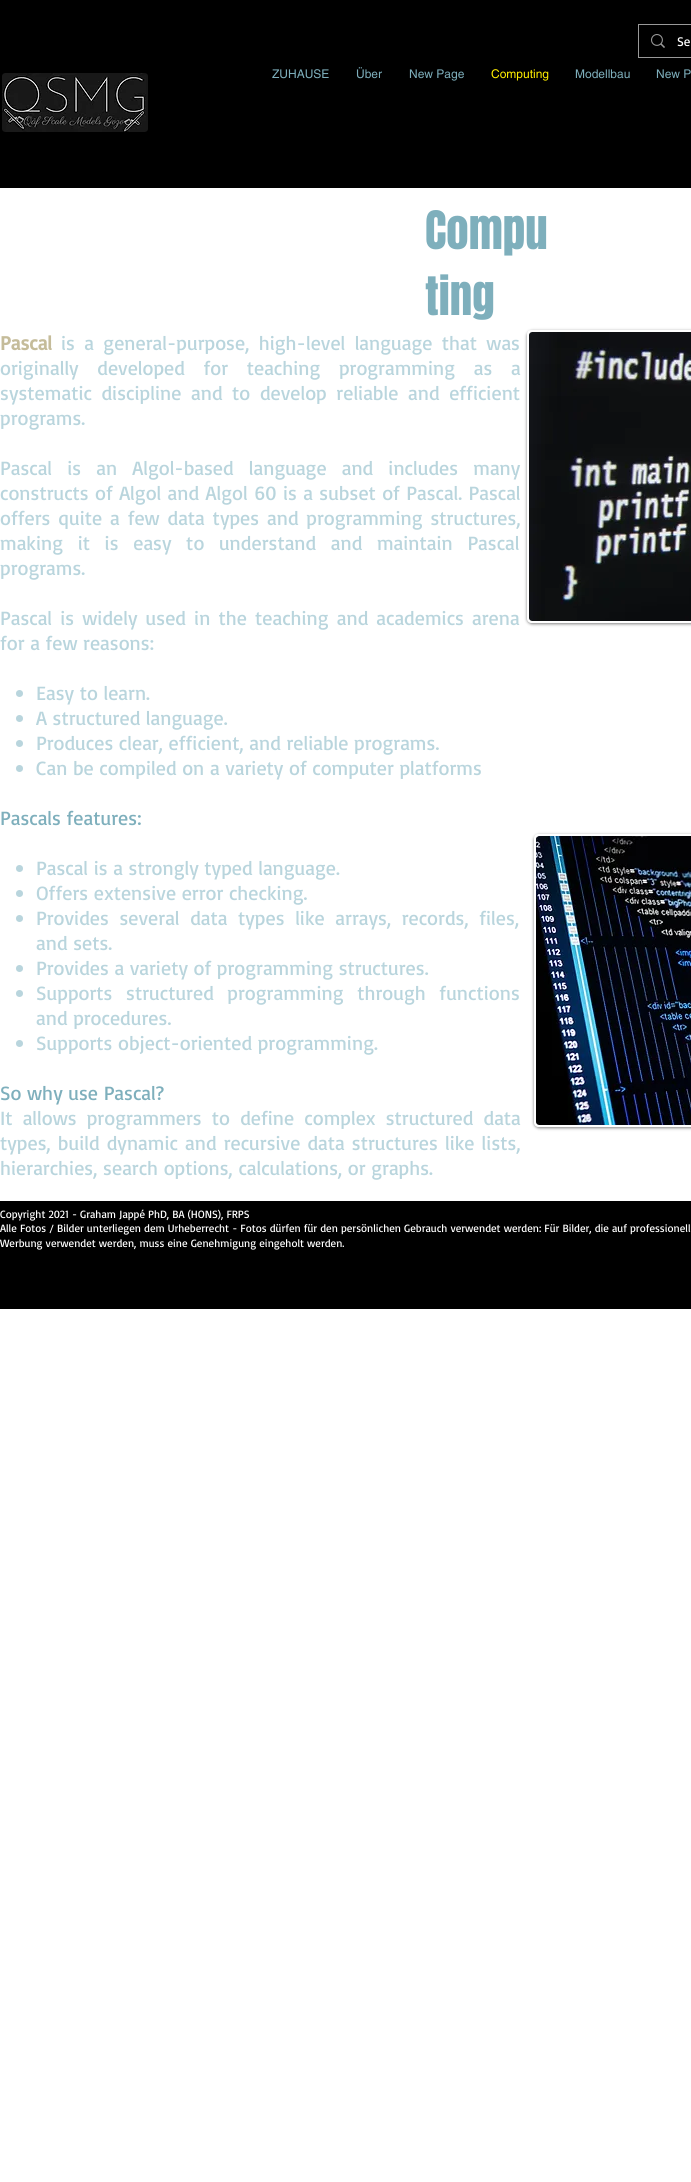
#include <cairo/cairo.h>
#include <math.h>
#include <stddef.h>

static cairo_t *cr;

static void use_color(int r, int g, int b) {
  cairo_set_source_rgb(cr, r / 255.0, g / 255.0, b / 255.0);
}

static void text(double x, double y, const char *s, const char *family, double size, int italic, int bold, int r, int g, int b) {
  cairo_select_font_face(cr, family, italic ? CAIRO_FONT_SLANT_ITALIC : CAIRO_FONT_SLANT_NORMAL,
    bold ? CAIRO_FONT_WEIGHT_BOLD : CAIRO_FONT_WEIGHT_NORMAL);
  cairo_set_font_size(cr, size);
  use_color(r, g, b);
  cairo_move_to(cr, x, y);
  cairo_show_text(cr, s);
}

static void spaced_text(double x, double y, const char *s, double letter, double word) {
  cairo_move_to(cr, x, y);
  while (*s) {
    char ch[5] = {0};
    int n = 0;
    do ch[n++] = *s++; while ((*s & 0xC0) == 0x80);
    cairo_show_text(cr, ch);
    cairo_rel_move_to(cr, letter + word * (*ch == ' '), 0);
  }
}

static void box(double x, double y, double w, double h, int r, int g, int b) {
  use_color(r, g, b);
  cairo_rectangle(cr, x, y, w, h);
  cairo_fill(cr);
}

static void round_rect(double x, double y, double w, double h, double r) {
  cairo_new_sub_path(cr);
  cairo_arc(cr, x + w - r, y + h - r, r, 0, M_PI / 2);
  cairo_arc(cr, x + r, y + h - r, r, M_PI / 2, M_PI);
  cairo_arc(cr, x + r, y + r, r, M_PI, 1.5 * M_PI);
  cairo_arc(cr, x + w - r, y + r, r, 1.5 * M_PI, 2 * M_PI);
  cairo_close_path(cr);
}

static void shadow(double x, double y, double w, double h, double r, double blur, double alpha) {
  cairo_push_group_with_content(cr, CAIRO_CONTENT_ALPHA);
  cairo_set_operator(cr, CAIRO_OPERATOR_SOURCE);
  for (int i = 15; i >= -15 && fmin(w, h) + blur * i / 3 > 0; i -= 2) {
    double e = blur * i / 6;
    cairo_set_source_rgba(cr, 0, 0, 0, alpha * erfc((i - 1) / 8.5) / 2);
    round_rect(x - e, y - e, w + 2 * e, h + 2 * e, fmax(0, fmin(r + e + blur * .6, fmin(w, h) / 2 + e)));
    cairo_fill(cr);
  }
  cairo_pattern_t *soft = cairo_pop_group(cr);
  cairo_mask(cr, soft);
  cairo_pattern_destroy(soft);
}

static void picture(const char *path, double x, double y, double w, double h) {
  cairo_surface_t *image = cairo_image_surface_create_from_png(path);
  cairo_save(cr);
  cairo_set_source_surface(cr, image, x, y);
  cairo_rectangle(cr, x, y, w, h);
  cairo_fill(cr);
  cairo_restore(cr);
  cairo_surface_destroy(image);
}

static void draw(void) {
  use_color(255, 255, 255);
  cairo_paint(cr);
  box(0, 0, 691, 188, 0, 0, 0);
  cairo_rectangle(cr, 638.5, 24.5, 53, 33);
  use_color(153, 153, 153);
  cairo_set_line_width(cr, 1);
  cairo_stroke(cr);
  picture("img_01.png", 651, 34, 14, 14);
  picture("img_02.png", 2, 73, 146, 59);
  use_color(185, 213, 221);
  cairo_arc(cr, 19.5, 693.5, 3.5, 0, 2 * M_PI);
  cairo_fill(cr);
  cairo_arc(cr, 19.5, 718.5, 3.5, 0, 2 * M_PI);
  cairo_fill(cr);
  cairo_arc(cr, 19.5, 743.5, 3.5, 0, 2 * M_PI);
  cairo_fill(cr);
  cairo_arc(cr, 19.5, 768.5, 3.5, 0, 2 * M_PI);
  cairo_fill(cr);
  cairo_arc(cr, 19.5, 868.5, 3.5, 0, 2 * M_PI);
  cairo_fill(cr);
  cairo_arc(cr, 19.5, 893.5, 3.5, 0, 2 * M_PI);
  cairo_fill(cr);
  cairo_arc(cr, 19.5, 918.5, 3.5, 0, 2 * M_PI);
  cairo_fill(cr);
  cairo_arc(cr, 19.5, 968.5, 3.5, 0, 2 * M_PI);
  cairo_fill(cr);
  cairo_arc(cr, 19.5, 993.5, 3.5, 0, 2 * M_PI);
  cairo_fill(cr);
  cairo_arc(cr, 19.5, 1043.5, 3.5, 0, 2 * M_PI);
  cairo_fill(cr);
  cairo_save(cr);
  cairo_set_fill_rule(cr, CAIRO_FILL_RULE_EVEN_ODD);
  cairo_new_path(cr);
  cairo_move_to(cr, 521, 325);
  cairo_line_to(cr, 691, 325);
  cairo_line_to(cr, 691, 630);
  cairo_line_to(cr, 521, 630);
  cairo_close_path(cr);
  cairo_move_to(cr, 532, 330);
  cairo_line_to(cr, 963, 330);
  cairo_curve_to(cr, 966, 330, 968, 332, 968, 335);
  cairo_line_to(cr, 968, 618);
  cairo_curve_to(cr, 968, 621, 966, 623, 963, 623);
  cairo_line_to(cr, 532, 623);
  cairo_curve_to(cr, 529, 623, 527, 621, 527, 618);
  cairo_line_to(cr, 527, 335);
  cairo_curve_to(cr, 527, 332, 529, 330, 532, 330);
  cairo_close_path(cr);
  cairo_clip(cr);
  use_color(0, 0, 0);
  shadow(527, 331, 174, 293, 5, 1.5, 0.5);
  cairo_restore(cr);
  picture("img_03.png", 529, 332, 162, 289);
  cairo_save(cr);
  cairo_set_fill_rule(cr, CAIRO_FILL_RULE_EVEN_ODD);
  cairo_new_path(cr);
  cairo_move_to(cr, 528, 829);
  cairo_line_to(cr, 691, 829);
  cairo_line_to(cr, 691, 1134);
  cairo_line_to(cr, 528, 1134);
  cairo_close_path(cr);
  cairo_move_to(cr, 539, 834);
  cairo_line_to(cr, 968, 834);
  cairo_curve_to(cr, 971, 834, 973, 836, 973, 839);
  cairo_line_to(cr, 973, 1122);
  cairo_curve_to(cr, 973, 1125, 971, 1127, 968, 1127);
  cairo_line_to(cr, 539, 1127);
  cairo_curve_to(cr, 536, 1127, 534, 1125, 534, 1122);
  cairo_line_to(cr, 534, 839);
  cairo_curve_to(cr, 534, 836, 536, 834, 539, 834);
  cairo_close_path(cr);
  cairo_clip(cr);
  use_color(0, 0, 0);
  shadow(534, 835, 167, 293, 5, 1.5, 0.5);
  cairo_restore(cr);
  picture("img_04.png", 536, 836, 155, 289);
  box(0, 1201, 691, 108, 0, 0, 0);
  text(677, 46, "Se", "Basic", 13, 0, 0, 255, 255, 255);
  text(272, 78, "ZUHAUSE", "helvetica", 12, 0, 0, 126, 175, 188);
  text(356, 78, "Über", "helvetica", 12, 0, 0, 126, 175, 188);
  text(409, 78, "New Page", "helvetica", 12, 0, 0, 126, 175, 188);
  text(491, 78, "Computing", "helvetica", 12, 0, 0, 255, 238, 0);
  text(575, 78, "Modellbau", "helvetica", 12, 0, 0, 126, 175, 188);
  text(656, 78, "New P", "helvetica", 12, 0, 0, 126, 175, 188);
  text(425, 249, "Compu", "Anton", 45, 0, 0, 126, 175, 188);
  text(425, 315, "ting", "Anton", 45, 0, 0, 126, 175, 188);
  text(0, 350, "Pascal", "Basic", 20, 0, 1, 197, 188, 154);
  cairo_select_font_face(cr, "Basic", CAIRO_FONT_SLANT_NORMAL, CAIRO_FONT_WEIGHT_NORMAL);
  use_color(185, 213, 221);
  spaced_text(61, 350, "is a general-purpose, high-level language that was", 0, 3.75);
  spaced_text(0, 375, "originally developed for teaching programming as a", 0, 13);
  spaced_text(0, 400, "systematic discipline and to develop reliable and efficient", 0, 4);
  text(0, 425, "programs.", "Basic", 20, 0, 0, 185, 213, 221);
  spaced_text(0, 475, "Pascal is an Algol-based language and includes many", 0, 9.5);
  spaced_text(0, 500, "constructs of Algol and Algol 60 is a subset of Pascal. Pascal", 0, 0.75);
  spaced_text(0, 525, "offers quite a few data types and programming structures,", 0, 2.25);
  spaced_text(0, 550, "making it is easy to understand and maintain Pascal", 0, 9);
  text(0, 575, "programs.", "Basic", 20, 0, 0, 185, 213, 221);
  spaced_text(0, 625, "Pascal is widely used in the teaching and academics arena", 0, 2.5);
  text(0, 650, "for a few reasons:", "Basic", 20, 0, 0, 185, 213, 221);
  text(36, 700, "Easy to learn.", "Basic", 20, 0, 0, 185, 213, 221);
  text(36, 725, "A structured language.", "Basic", 20, 0, 0, 185, 213, 221);
  text(36, 750, "Produces clear, efficient, and reliable programs.", "Basic", 20, 0, 0, 185, 213, 221);
  text(36, 775, "Can be compiled on a variety of computer platforms", "Basic", 20, 0, 0, 185, 213, 221);
  text(0, 825, "Pascals features:", "Basic", 20, 0, 0, 126, 175, 188);
  text(36, 875, "Pascal is a strongly typed language.", "Basic", 20, 0, 0, 185, 213, 221);
  text(36, 900, "Offers extensive error checking.", "Basic", 20, 0, 0, 185, 213, 221);
  spaced_text(36, 925, "Provides several data types like arrays, records, files,", 0, 5);
  text(36, 950, "and sets.", "Basic", 20, 0, 0, 185, 213, 221);
  text(36, 975, "Provides a variety of programming structures.", "Basic", 20, 0, 0, 185, 213, 221);
  spaced_text(36, 1000, "Supports structured programming through functions", 0, 8);
  text(36, 1025, "and procedures.", "Basic", 20, 0, 0, 185, 213, 221);
  text(36, 1050, "Supports object-oriented programming.", "Basic", 20, 0, 0, 185, 213, 221);
  text(0, 1100, "So why use Pascal?", "Basic", 20, 0, 0, 126, 175, 188);
  use_color(185, 213, 221);
  spaced_text(0, 1125, "It allows programmers to define complex structured data", 0, 4.5);
  spaced_text(0, 1150, "types, build dynamic and recursive data structures like lists,", 0, 1.5);
  text(0, 1175, "hierarchies, search options, calculations, or graphs.", "Basic", 20, 0, 0, 185, 213, 221);
  text(0, 1218, "Copyright 2021 - Graham Jappé PhD, BA (HONS), FRPS", "Basic", 11, 0, 0, 255, 255, 255);
  text(0, 1232, "Alle Fotos / Bilder unterliegen dem Urheberrecht - Fotos dürfen für den persönlichen Gebrauch verwendet werden: Für Bilder, die auf professionell", "Basic", 11, 0, 0, 255, 255, 255);
  text(0, 1247, "Werbung verwendet werden, muss eine Genehmigung eingeholt werden.", "Basic", 11, 0, 0, 255, 255, 255);
}

int main(void) {
  cairo_surface_t *surface = cairo_image_surface_create(CAIRO_FORMAT_RGB24, 691, 2182);
  cr = cairo_create(surface);
  cairo_font_options_t *options = cairo_font_options_create();
  cairo_font_options_set_hint_metrics(options, CAIRO_HINT_METRICS_OFF);
  cairo_font_options_set_hint_style(options, CAIRO_HINT_STYLE_NONE);
  cairo_set_font_options(cr, options);
  cairo_set_miter_limit(cr, 4);
  draw();
  cairo_surface_write_to_png(surface, "out.png");
  cairo_font_options_destroy(options);
  cairo_destroy(cr);
  cairo_surface_destroy(surface);
  return 0;
}
